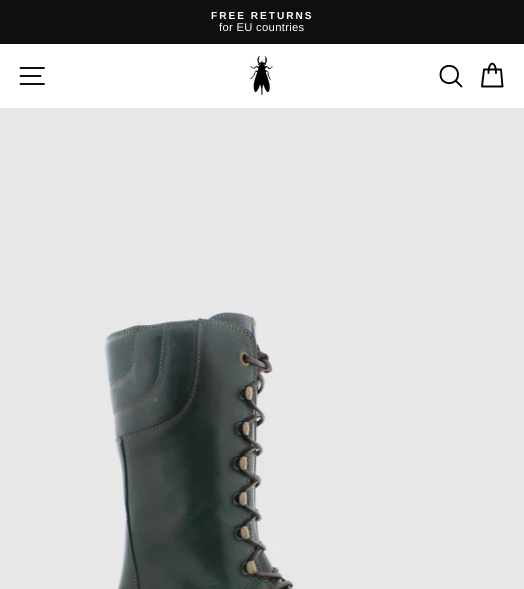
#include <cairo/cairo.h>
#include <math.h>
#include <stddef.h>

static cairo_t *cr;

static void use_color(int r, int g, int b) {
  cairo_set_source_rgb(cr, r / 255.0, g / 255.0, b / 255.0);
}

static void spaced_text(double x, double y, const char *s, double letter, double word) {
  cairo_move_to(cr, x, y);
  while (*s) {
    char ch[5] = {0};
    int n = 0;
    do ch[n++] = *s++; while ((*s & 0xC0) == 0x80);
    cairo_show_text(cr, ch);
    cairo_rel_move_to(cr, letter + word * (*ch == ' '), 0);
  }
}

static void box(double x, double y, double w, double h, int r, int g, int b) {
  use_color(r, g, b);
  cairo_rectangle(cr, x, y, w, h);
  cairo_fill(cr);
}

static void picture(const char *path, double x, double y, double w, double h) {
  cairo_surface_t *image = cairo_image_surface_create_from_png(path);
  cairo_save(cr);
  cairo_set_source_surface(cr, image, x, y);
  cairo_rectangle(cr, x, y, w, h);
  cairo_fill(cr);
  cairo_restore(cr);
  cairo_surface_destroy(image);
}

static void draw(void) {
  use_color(255, 255, 255);
  cairo_paint(cr);
  box(0, 0, 524, 44, 15, 15, 15);
  cairo_new_path(cr);
  cairo_move_to(cr, 20.5, 68);
  cairo_line_to(cr, 44, 68);
  cairo_move_to(cr, 20.5, 76);
  cairo_line_to(cr, 40.5, 76);
  cairo_move_to(cr, 20.5, 84);
  cairo_line_to(cr, 44, 84);
  use_color(0, 0, 0);
  cairo_set_line_width(cr, 1.9);
  cairo_set_line_cap(cr, CAIRO_LINE_CAP_ROUND);
  cairo_set_line_join(cr, CAIRO_LINE_JOIN_ROUND);
  cairo_stroke(cr);
  picture("img_01.png", 250, 56, 23, 40);
  cairo_new_path(cr);
  cairo_move_to(cr, 458, 74.5);
  cairo_curve_to(cr, 458, 86, 440.5, 86, 440.5, 74.5);
  cairo_curve_to(cr, 440.5, 63, 458, 63, 458, 74.5);
  cairo_close_path(cr);
  cairo_move_to(cr, 461.5, 86.5);
  cairo_line_to(cr, 455.5, 80.5);
  cairo_move_to(cr, 488.5, 73);
  cairo_curve_to(cr, 488.5, 60.5, 496, 60.5, 496, 73);
  cairo_stroke(cr);
  cairo_new_path(cr);
  cairo_move_to(cr, 484, 69.5);
  cairo_line_to(cr, 501, 69.5);
  cairo_line_to(cr, 502.5, 86.5);
  cairo_line_to(cr, 482, 86.5);
  cairo_close_path(cr);
  cairo_stroke(cr);
  box(0, 108, 524, 481, 231, 231, 231);
  picture("img_02.png", 104, 310, 193, 279);
  cairo_select_font_face(cr, "Arimo", CAIRO_FONT_SLANT_NORMAL, CAIRO_FONT_WEIGHT_BOLD);
  cairo_set_font_size(cr, 10.1);
  use_color(255, 255, 255);
  spaced_text(211, 19, "FREE RETURNS", 2, 0);
  cairo_select_font_face(cr, "Liberation Sans", CAIRO_FONT_SLANT_NORMAL, CAIRO_FONT_WEIGHT_NORMAL);
  cairo_set_font_size(cr, 11.25);
  spaced_text(219, 31, "for EU countries", 0.3, 0);
}

int main(void) {
  cairo_surface_t *surface = cairo_image_surface_create(CAIRO_FORMAT_RGB24, 524, 589);
  cr = cairo_create(surface);
  cairo_font_options_t *options = cairo_font_options_create();
  cairo_font_options_set_hint_metrics(options, CAIRO_HINT_METRICS_OFF);
  cairo_font_options_set_hint_style(options, CAIRO_HINT_STYLE_NONE);
  cairo_set_font_options(cr, options);
  cairo_set_miter_limit(cr, 4);
  draw();
  cairo_surface_write_to_png(surface, "out.png");
  cairo_font_options_destroy(options);
  cairo_destroy(cr);
  cairo_surface_destroy(surface);
  return 0;
}
